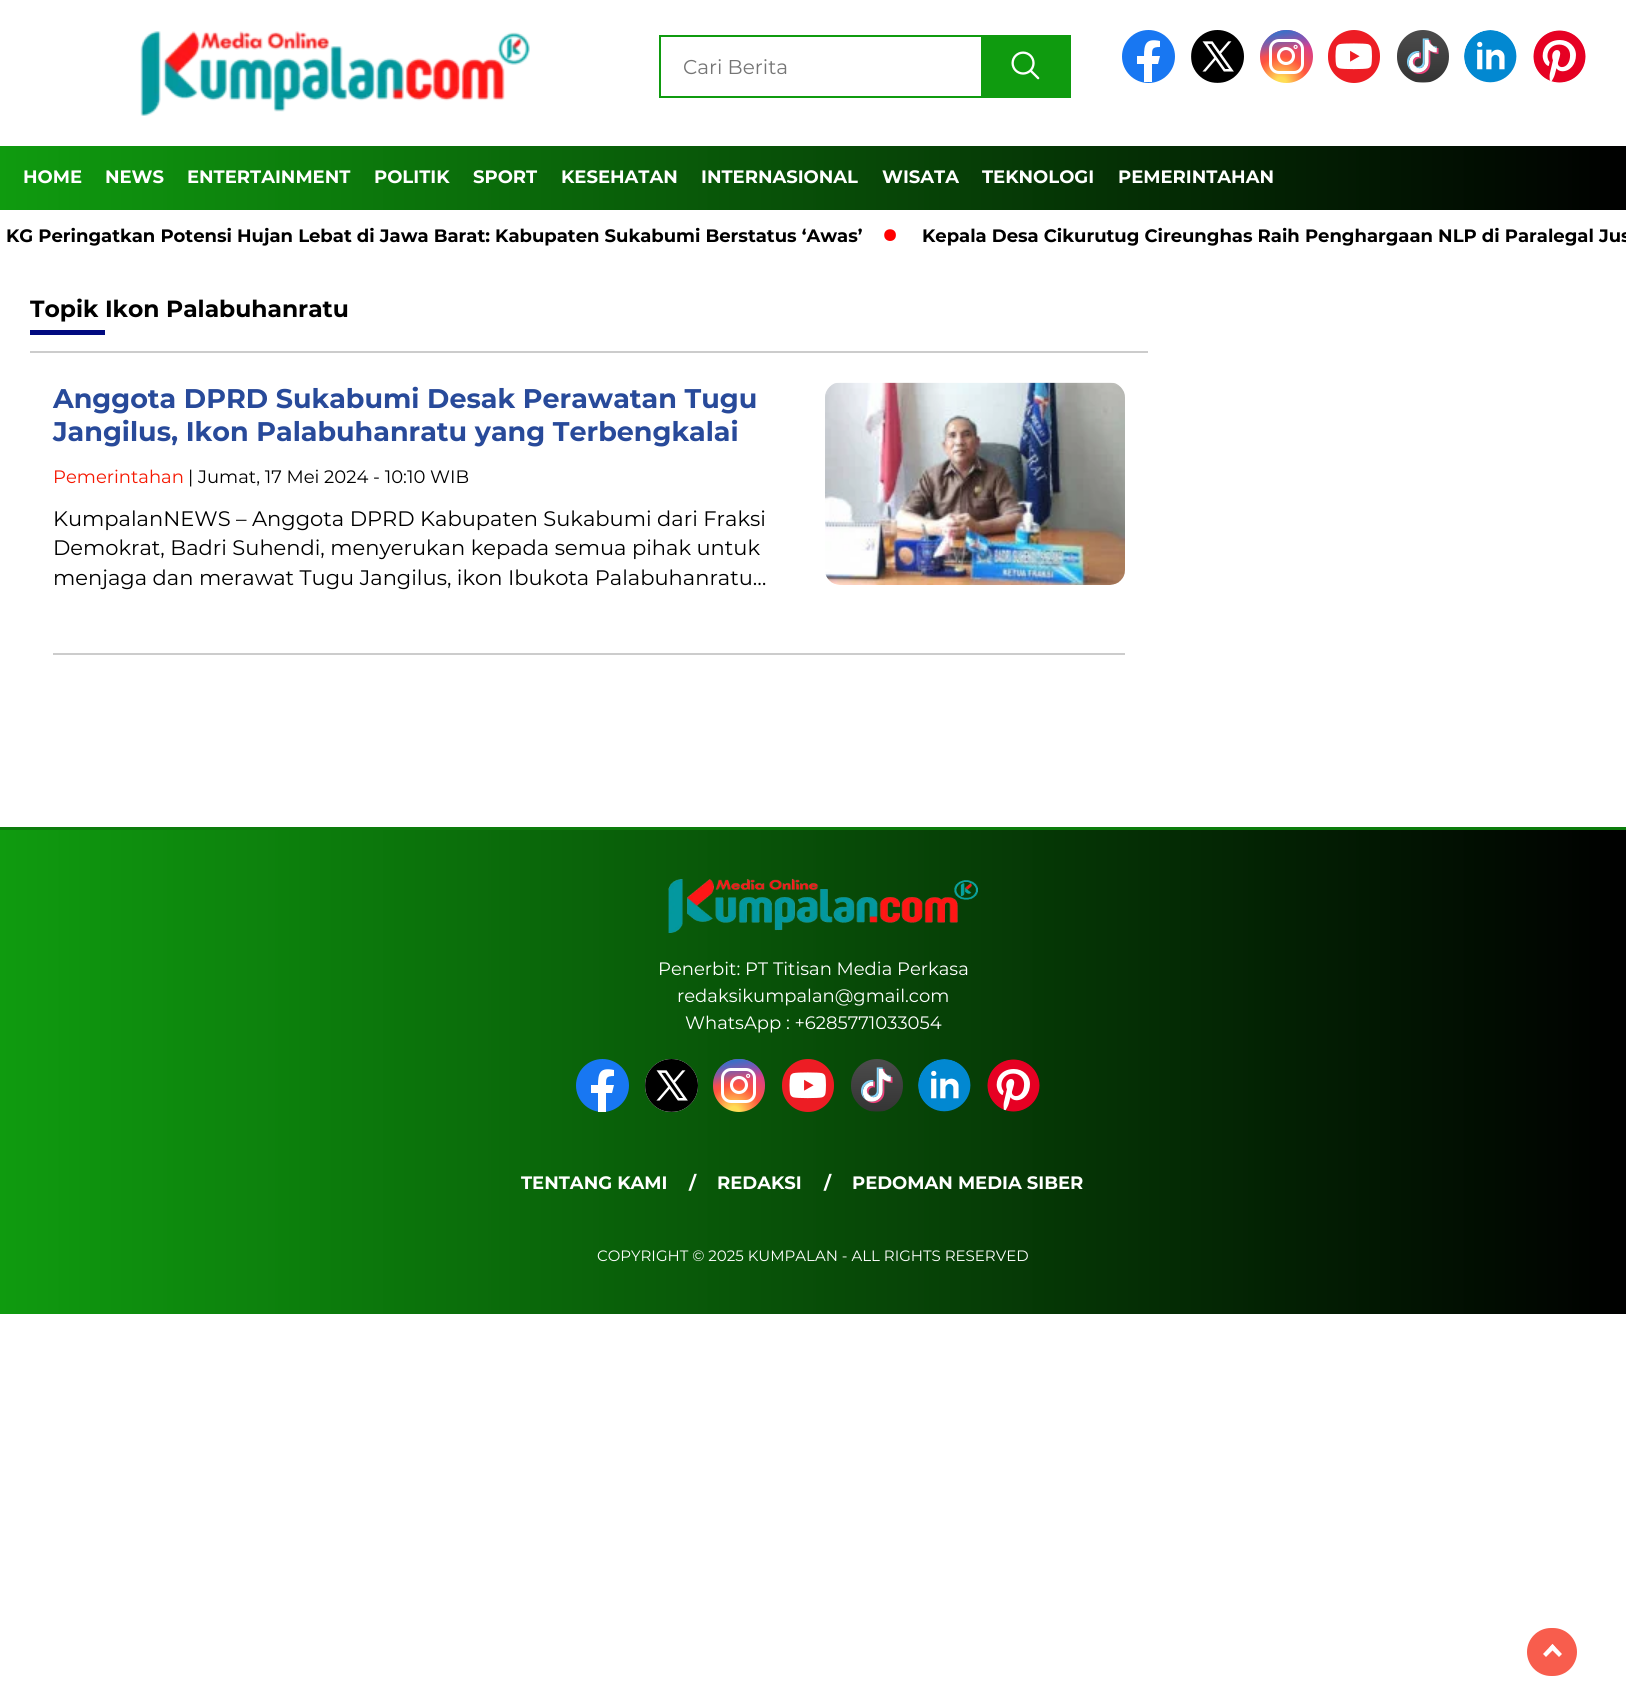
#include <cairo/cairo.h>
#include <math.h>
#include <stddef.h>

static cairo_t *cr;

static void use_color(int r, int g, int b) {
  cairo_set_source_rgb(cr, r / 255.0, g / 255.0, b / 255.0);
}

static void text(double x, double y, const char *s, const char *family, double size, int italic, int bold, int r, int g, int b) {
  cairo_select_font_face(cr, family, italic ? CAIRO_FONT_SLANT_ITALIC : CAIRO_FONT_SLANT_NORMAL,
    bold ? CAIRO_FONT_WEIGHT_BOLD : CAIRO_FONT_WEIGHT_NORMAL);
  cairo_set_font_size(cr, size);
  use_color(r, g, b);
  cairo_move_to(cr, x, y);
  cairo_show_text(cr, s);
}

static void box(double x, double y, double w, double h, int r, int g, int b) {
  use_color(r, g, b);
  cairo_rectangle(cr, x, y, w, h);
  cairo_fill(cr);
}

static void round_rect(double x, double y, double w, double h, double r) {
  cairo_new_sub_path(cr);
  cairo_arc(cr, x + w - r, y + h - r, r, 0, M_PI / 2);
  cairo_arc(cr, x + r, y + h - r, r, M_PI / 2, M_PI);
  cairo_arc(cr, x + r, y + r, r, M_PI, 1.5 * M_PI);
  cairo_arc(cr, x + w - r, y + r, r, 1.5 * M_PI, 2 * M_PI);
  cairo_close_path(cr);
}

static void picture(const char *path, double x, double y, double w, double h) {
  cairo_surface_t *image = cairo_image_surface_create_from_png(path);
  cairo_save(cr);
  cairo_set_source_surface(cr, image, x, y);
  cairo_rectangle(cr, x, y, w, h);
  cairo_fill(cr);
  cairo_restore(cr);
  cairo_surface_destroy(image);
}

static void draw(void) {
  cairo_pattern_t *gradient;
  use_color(255, 255, 255);
  cairo_paint(cr);
  picture("img_01.png", 140, 31, 390, 85);
  cairo_rectangle(cr, 660, 36, 322, 61);
  use_color(15, 155, 15);
  cairo_stroke(cr);
  box(983, 35, 88, 63, 15, 155, 15);
  picture("img_02.png", 1011, 51, 29, 29);
  use_color(24, 119, 242);
  cairo_arc(cr, 1148.5, 56.5, 26.5, 0, 2 * M_PI);
  cairo_fill(cr);
  use_color(255, 255, 255);
  cairo_new_path(cr);
  cairo_move_to(cr, 1158, 64);
  cairo_line_to(cr, 1160, 56);
  cairo_line_to(cr, 1152, 56);
  cairo_curve_to(cr, 1152, 49, 1152, 47, 1160, 47);
  cairo_line_to(cr, 1160, 41);
  cairo_curve_to(cr, 1146, 38, 1144, 44, 1144, 56);
  cairo_line_to(cr, 1137, 56);
  cairo_line_to(cr, 1137, 64);
  cairo_line_to(cr, 1144, 64);
  cairo_line_to(cr, 1144, 82);
  cairo_line_to(cr, 1152, 82);
  cairo_line_to(cr, 1152, 64);
  cairo_close_path(cr);
  cairo_fill(cr);
  picture("img_03.png", 1191, 30, 53, 53);
  gradient = cairo_pattern_create_radial(1281, 83, 0, 1281, 83, 53);
  cairo_pattern_add_color_stop_rgba(gradient, 0.1, 1, 0.867, 0.333, 1);
  cairo_pattern_add_color_stop_rgba(gradient, 0.5, 1, 0.329, 0.243, 1);
  cairo_pattern_add_color_stop_rgba(gradient, 1, 0.784, 0.216, 0.671, 1);
  cairo_set_source(cr, gradient);
  cairo_pattern_destroy(gradient);
  cairo_arc(cr, 1286.5, 56.5, 26.5, 0, 2 * M_PI);
  cairo_fill(cr);
  gradient = cairo_pattern_create_linear(1260, 30, 1271, 83);
  cairo_pattern_add_color_stop_rgba(gradient, 0.1, 0.216, 0.443, 0.784, 1);
  cairo_pattern_add_color_stop_rgba(gradient, 0.5, 0.216, 0.443, 0.784, 0);
  cairo_set_source(cr, gradient);
  cairo_pattern_destroy(gradient);
  cairo_arc(cr, 1286.5, 56.5, 26.5, 0, 2 * M_PI);
  cairo_fill(cr);
  round_rect(1270.5, 40.5, 32, 32, 8.5);
  use_color(255, 255, 255);
  cairo_set_line_width(cr, 3);
  cairo_stroke(cr);
  cairo_arc(cr, 1286, 56, 7.5, 0, 2 * M_PI);
  cairo_set_line_width(cr, 3.1);
  cairo_stroke(cr);
  cairo_arc(cr, 1295.6, 46.9, 0.6, 0, 2 * M_PI);
  cairo_stroke(cr);
  picture("img_04.png", 1328, 30, 52, 53);
  picture("img_05.png", 1397, 30, 52, 53);
  picture("img_06.png", 1464, 30, 53, 53);
  picture("img_07.png", 1533, 30, 53, 53);
  gradient = cairo_pattern_create_linear(0, 178, 1626, 178);
  cairo_pattern_add_color_stop_rgba(gradient, 0, 0.059, 0.608, 0.059, 1);
  cairo_pattern_add_color_stop_rgba(gradient, 1, 0, 0, 0, 1);
  cairo_set_source(cr, gradient);
  cairo_pattern_destroy(gradient);
  cairo_rectangle(cr, 0, 146, 1626, 64);
  cairo_fill(cr);
  box(30, 351, 1118, 2, 204, 204, 204);
  box(30, 330, 75, 5, 1, 10, 128);
  box(53, 653, 1072, 2, 204, 204, 204);
  picture("img_08.png", 825, 382, 300, 203);
  gradient = cairo_pattern_create_linear(0, 1072, 1626, 1072);
  cairo_pattern_add_color_stop_rgba(gradient, 0, 0.059, 0.608, 0.059, 1);
  cairo_pattern_add_color_stop_rgba(gradient, 1, 0, 0, 0, 1);
  cairo_set_source(cr, gradient);
  cairo_pattern_destroy(gradient);
  cairo_rectangle(cr, 0, 830, 1626, 484);
  cairo_fill(cr);
  box(0, 827, 1626, 3, 12, 124, 12);
  picture("img_09.png", 668, 878, 310, 55);
  use_color(24, 119, 242);
  cairo_arc(cr, 602.5, 1085.5, 26.5, 0, 2 * M_PI);
  cairo_fill(cr);
  use_color(255, 255, 255);
  cairo_new_path(cr);
  cairo_move_to(cr, 612, 1093);
  cairo_line_to(cr, 606, 1093);
  cairo_line_to(cr, 606, 1112);
  cairo_line_to(cr, 598, 1112);
  cairo_line_to(cr, 598, 1093);
  cairo_line_to(cr, 591, 1093);
  cairo_line_to(cr, 591, 1085);
  cairo_line_to(cr, 598, 1085);
  cairo_curve_to(cr, 598, 1073, 600, 1067, 614, 1070);
  cairo_line_to(cr, 614, 1076);
  cairo_curve_to(cr, 606, 1076, 606, 1078, 606, 1085);
  cairo_line_to(cr, 614, 1085);
  cairo_close_path(cr);
  cairo_fill(cr);
  picture("img_10.png", 645, 1059, 53, 53);
  gradient = cairo_pattern_create_radial(734, 1112, 0, 734, 1112, 53);
  cairo_pattern_add_color_stop_rgba(gradient, 0.1, 1, 0.867, 0.333, 1);
  cairo_pattern_add_color_stop_rgba(gradient, 0.5, 1, 0.329, 0.243, 1);
  cairo_pattern_add_color_stop_rgba(gradient, 1, 0.784, 0.216, 0.671, 1);
  cairo_set_source(cr, gradient);
  cairo_pattern_destroy(gradient);
  round_rect(713, 1059, 52, 53, 26);
  cairo_fill(cr);
  gradient = cairo_pattern_create_linear(713, 1059, 723, 1112);
  cairo_pattern_add_color_stop_rgba(gradient, 0.1, 0.216, 0.443, 0.784, 1);
  cairo_pattern_add_color_stop_rgba(gradient, 0.5, 0.216, 0.443, 0.784, 0);
  cairo_set_source(cr, gradient);
  cairo_pattern_destroy(gradient);
  round_rect(713, 1059, 52, 53, 26);
  cairo_fill(cr);
  round_rect(722.5, 1069.5, 32, 32, 8.5);
  use_color(255, 255, 255);
  cairo_set_line_width(cr, 3);
  cairo_stroke(cr);
  cairo_arc(cr, 739, 1085, 7.5, 0, 2 * M_PI);
  cairo_set_line_width(cr, 3.1);
  cairo_stroke(cr);
  cairo_arc(cr, 748.1, 1075.9, 0.6, 0, 2 * M_PI);
  cairo_stroke(cr);
  picture("img_11.png", 782, 1059, 52, 53);
  picture("img_12.png", 851, 1059, 52, 53);
  picture("img_13.png", 918, 1059, 53, 53);
  picture("img_14.png", 987, 1059, 53, 53);
  use_color(248, 93, 77);
  round_rect(1527, 1628, 50, 48, 24);
  cairo_fill(cr);
  use_color(255, 255, 255);
  cairo_new_path(cr);
  cairo_move_to(cr, 1546, 1657);
  cairo_line_to(cr, 1543, 1654);
  cairo_line_to(cr, 1552.5, 1644);
  cairo_line_to(cr, 1555.5, 1647.5);
  cairo_close_path(cr);
  cairo_fill(cr);
  cairo_new_path(cr);
  cairo_move_to(cr, 1559, 1657);
  cairo_line_to(cr, 1549.5, 1647.5);
  cairo_line_to(cr, 1552.5, 1644);
  cairo_line_to(cr, 1562, 1654);
  cairo_close_path(cr);
  cairo_fill(cr);
  text(683, 74, "Cari Berita", "Montserrat", 20, 0, 0, 117, 117, 117);
  text(23, 183, "HOME", "Montserrat", 18, 0, 1, 255, 255, 255);
  text(105, 183, "NEWS", "Montserrat", 18, 0, 1, 255, 255, 255);
  text(187, 183, "ENTERTAINMENT", "Montserrat", 18, 0, 1, 255, 255, 255);
  text(374, 183, "POLITIK", "Montserrat", 18, 0, 1, 255, 255, 255);
  text(473, 183, "SPORT", "Montserrat", 18, 0, 1, 255, 255, 255);
  text(561, 183, "KESEHATAN", "Montserrat", 18, 0, 1, 255, 255, 255);
  text(701, 183, "INTERNASIONAL", "Montserrat", 18, 0, 1, 255, 255, 255);
  text(882, 183, "WISATA", "Montserrat", 18, 0, 1, 255, 255, 255);
  text(982, 183, "TEKNOLOGI", "Montserrat", 18, 0, 1, 255, 255, 255);
  text(1118, 183, "PEMERINTAHAN", "Montserrat", 18, 0, 1, 255, 255, 255);
  text(6, 242, "KG Peringatkan Potensi Hujan Lebat di Jawa Barat: Kabupaten Sukabumi Berstatus ‘Awas’", "Montserrat", 18, 0, 1, 0, 0, 0);
  text(881, 252, "·", "Montserrat", 60, 0, 1, 255, 0, 0);
  text(922, 242, "Kepala Desa Cikurutug Cireunghas Raih Penghargaan NLP di Paralegal Jus", "Montserrat", 18, 0, 1, 0, 0, 0);
  text(30, 317, "Topik Ikon Palabuhanratu", "Montserrat", 23.4, 0, 1, 0, 0, 0);
  text(53, 408, "Anggota DPRD Sukabumi Desak Perawatan Tugu", "Montserrat", 27, 0, 1, 40, 74, 154);
  text(53, 441, "Jangilus, Ikon Palabuhanratu yang Terbengkalai", "Montserrat", 27, 0, 1, 40, 74, 154);
  text(53, 483, "Pemerintahan", "Montserrat", 18, 0, 0, 245, 23, 0);
  text(188, 483, "| Jumat, 17 Mei 2024 - 10:10 WIB", "Montserrat", 18, 0, 0, 0, 0, 0);
  text(53, 526, "KumpalanNEWS – Anggota DPRD Kabupaten Sukabumi dari Fraksi", "Montserrat", 21, 0, 0, 0, 0, 0);
  text(53, 555, "Demokrat, Badri Suhendi, menyerukan kepada semua pihak untuk", "Montserrat", 21, 0, 0, 0, 0, 0);
  text(53, 585, "menjaga dan merawat Tugu Jangilus, ikon Ibukota Palabuhanratu…", "Montserrat", 21, 0, 0, 0, 0, 0);
  text(658, 975, "Penerbit: PT Titisan Media Perkasa", "Montserrat", 18, 0, 0, 255, 255, 255);
  text(677, 1002, "redaksikumpalan@gmail.com", "Montserrat", 18, 0, 0, 255, 255, 255);
  text(685, 1029, "WhatsApp : +6285771033054", "Montserrat", 18, 0, 0, 255, 255, 255);
  text(521, 1189, "TENTANG KAMI", "Montserrat", 18, 0, 1, 255, 255, 255);
  text(689, 1189, "/", "Montserrat", 18, 0, 1, 255, 255, 255);
  text(717, 1189, "REDAKSI", "Montserrat", 18, 0, 1, 255, 255, 255);
  text(824, 1189, "/", "Montserrat", 18, 0, 1, 255, 255, 255);
  text(852, 1189, "PEDOMAN MEDIA SIBER", "Montserrat", 18, 0, 1, 255, 255, 255);
  text(597, 1261, "COPYRIGHT © 2025 KUMPALAN - ALL RIGHTS RESERVED", "Montserrat", 15, 0, 0, 255, 255, 255);
}

int main(void) {
  cairo_surface_t *surface = cairo_image_surface_create(CAIRO_FORMAT_RGB24, 1626, 1698);
  cr = cairo_create(surface);
  cairo_font_options_t *options = cairo_font_options_create();
  cairo_font_options_set_hint_metrics(options, CAIRO_HINT_METRICS_OFF);
  cairo_font_options_set_hint_style(options, CAIRO_HINT_STYLE_NONE);
  cairo_set_font_options(cr, options);
  cairo_set_miter_limit(cr, 4);
  draw();
  cairo_surface_write_to_png(surface, "out.png");
  cairo_font_options_destroy(options);
  cairo_destroy(cr);
  cairo_surface_destroy(surface);
  return 0;
}
